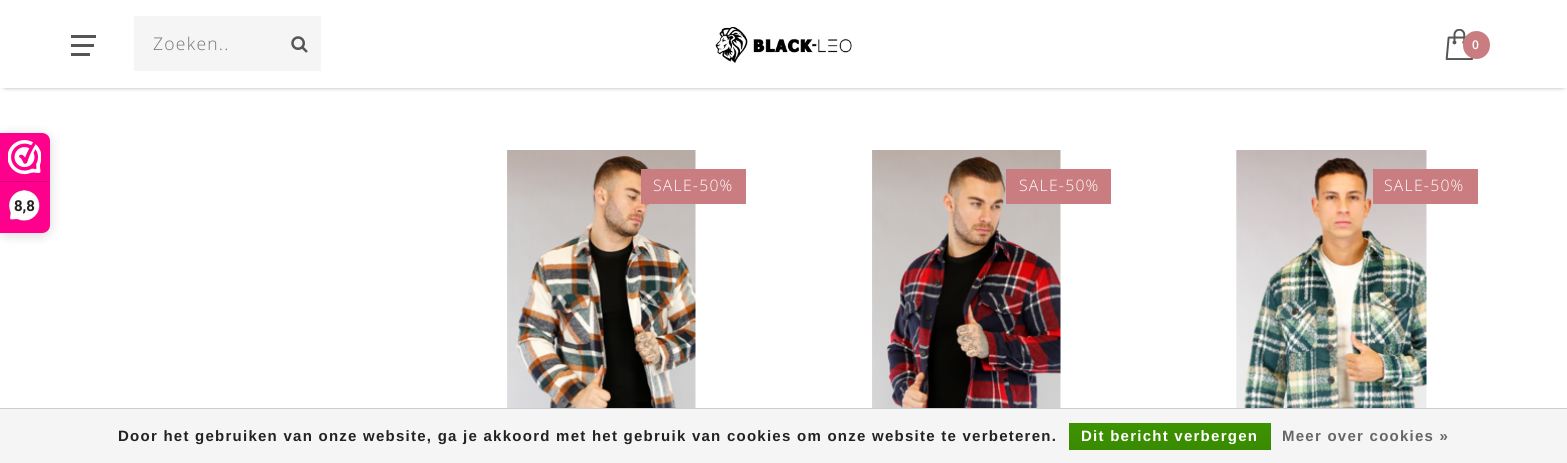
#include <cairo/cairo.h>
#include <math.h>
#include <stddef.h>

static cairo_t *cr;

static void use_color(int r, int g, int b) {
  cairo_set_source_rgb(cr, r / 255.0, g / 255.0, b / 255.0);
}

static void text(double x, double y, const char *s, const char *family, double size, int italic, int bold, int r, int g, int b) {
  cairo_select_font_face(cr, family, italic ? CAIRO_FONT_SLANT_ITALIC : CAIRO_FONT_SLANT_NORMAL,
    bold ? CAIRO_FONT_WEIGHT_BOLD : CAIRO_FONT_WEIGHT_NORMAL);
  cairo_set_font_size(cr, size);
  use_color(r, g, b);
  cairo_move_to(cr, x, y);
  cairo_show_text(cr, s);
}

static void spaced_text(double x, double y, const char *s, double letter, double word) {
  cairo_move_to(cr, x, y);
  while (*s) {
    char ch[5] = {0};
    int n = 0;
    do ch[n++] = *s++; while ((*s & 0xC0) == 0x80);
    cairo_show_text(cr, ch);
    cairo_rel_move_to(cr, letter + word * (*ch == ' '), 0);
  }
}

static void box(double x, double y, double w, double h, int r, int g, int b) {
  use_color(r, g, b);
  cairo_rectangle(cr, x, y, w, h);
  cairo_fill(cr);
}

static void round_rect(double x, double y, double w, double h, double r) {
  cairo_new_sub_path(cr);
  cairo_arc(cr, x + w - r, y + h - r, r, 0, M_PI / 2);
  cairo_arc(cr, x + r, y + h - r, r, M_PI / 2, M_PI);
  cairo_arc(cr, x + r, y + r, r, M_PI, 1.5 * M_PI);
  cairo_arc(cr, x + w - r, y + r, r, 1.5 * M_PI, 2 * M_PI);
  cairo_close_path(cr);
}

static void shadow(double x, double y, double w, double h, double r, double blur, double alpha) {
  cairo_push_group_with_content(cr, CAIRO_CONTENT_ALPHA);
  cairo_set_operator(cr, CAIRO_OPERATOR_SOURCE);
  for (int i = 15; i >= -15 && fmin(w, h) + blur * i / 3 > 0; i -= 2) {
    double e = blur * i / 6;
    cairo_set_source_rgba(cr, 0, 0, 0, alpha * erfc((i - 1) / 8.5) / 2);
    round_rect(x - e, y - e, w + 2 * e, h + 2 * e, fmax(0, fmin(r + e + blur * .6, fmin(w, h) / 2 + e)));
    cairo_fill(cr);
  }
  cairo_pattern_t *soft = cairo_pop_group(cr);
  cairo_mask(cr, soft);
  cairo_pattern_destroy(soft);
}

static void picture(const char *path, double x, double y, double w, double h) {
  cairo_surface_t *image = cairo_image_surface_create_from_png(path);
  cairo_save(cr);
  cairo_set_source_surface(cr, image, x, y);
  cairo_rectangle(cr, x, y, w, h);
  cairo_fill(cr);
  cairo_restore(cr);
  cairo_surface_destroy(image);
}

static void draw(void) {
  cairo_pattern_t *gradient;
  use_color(255, 255, 255);
  cairo_paint(cr);
  use_color(0, 0, 0);
  shadow(0, 135, 50, 100, 8, 6, 0.15);
  use_color(254, 0, 140);
  cairo_new_path(cr);
  cairo_move_to(cr, 0, 133);
  cairo_line_to(cr, 42, 133);
  cairo_curve_to(cr, 46.5, 133, 50, 136.5, 50, 141);
  cairo_line_to(cr, 50, 225);
  cairo_curve_to(cr, 50, 229.5, 46.5, 233, 42, 233);
  cairo_line_to(cr, 0, 233);
  cairo_close_path(cr);
  cairo_fill(cr);
  picture("img_01.png", 8, 140, 33, 35);
  box(0, 181, 49, 1, 216, 0, 119);
  picture("img_02.png", 9, 190, 31, 31);
  use_color(0, 0, 0);
  shadow(5, 8, 1558, 77, 0, 3, 1);
  box(0, 1, 1567, 87, 255, 255, 255);
  box(71, 35, 25, 3, 85, 85, 85);
  box(71, 44, 23, 3, 85, 85, 85);
  box(71, 53, 19, 3, 85, 85, 85);
  box(134, 16, 187, 55, 245, 245, 245);
  picture("img_03.png", 291, 36, 17, 17);
  picture("img_04.png", 715, 27, 137, 36);
  picture("img_05.png", 1445, 29, 28, 31);
  use_color(202, 125, 128);
  round_rect(1463, 31, 27, 28, 13.5);
  cairo_fill(cr);
  picture("img_06.png", 507, 150, 189, 258);
  box(641, 169, 105, 35, 202, 125, 128);
  picture("img_07.png", 872, 150, 189, 258);
  box(1006, 169, 105, 35, 202, 125, 128);
  picture("img_08.png", 1236, 150, 191, 258);
  box(1373, 169, 105, 35, 202, 125, 128);
  box(0, 409, 1567, 54, 245, 245, 245);
  box(0, 408, 1567, 1, 204, 204, 204);
  gradient = cairo_pattern_create_linear(1170, 423, 1170, 450);
  cairo_pattern_add_color_stop_rgba(gradient, 0, 0.235, 0.576, 0, 1);
  cairo_pattern_add_color_stop_rgba(gradient, 1, 0.224, 0.541, 0, 1);
  cairo_set_source(cr, gradient);
  cairo_pattern_destroy(gradient);
  cairo_rectangle(cr, 1069, 423, 202, 27);
  cairo_fill(cr);
  text(14, 211, "8,8", "Roboto", 15, 0, 1, 34, 34, 34);
  cairo_select_font_face(cr, "Open Sans Light", CAIRO_FONT_SLANT_NORMAL, CAIRO_FONT_WEIGHT_NORMAL);
  cairo_set_font_size(cr, 17.5);
  use_color(117, 117, 117);
  spaced_text(153, 50, "Zoeken..", 1.25, 0);
  cairo_select_font_face(cr, "Open Sans SemiBold", CAIRO_FONT_SLANT_NORMAL, CAIRO_FONT_WEIGHT_NORMAL);
  cairo_set_font_size(cr, 12);
  use_color(255, 255, 255);
  spaced_text(1472, 49, "0", 1.25, 0);
  cairo_select_font_face(cr, "Open Sans Light", CAIRO_FONT_SLANT_NORMAL, CAIRO_FONT_WEIGHT_NORMAL);
  cairo_set_font_size(cr, 15.75);
  spaced_text(653, 191, "SALE-50%", 1.25, 0);
  spaced_text(1019, 191, "SALE-50%", 1.25, 0);
  spaced_text(1384, 191, "SALE-50%", 1.25, 0);
  cairo_select_font_face(cr, "Liberation Sans", CAIRO_FONT_SLANT_NORMAL, CAIRO_FONT_WEIGHT_BOLD);
  cairo_set_font_size(cr, 15);
  use_color(34, 34, 34);
  spaced_text(118, 441, "Door het gebruiken van onze website, ga je akkoord met het gebruik van cookies om onze website te verbeteren.", 1.25, 0);
  use_color(255, 255, 255);
  spaced_text(1081, 441, "Dit bericht verbergen", 1.25, 0);
  use_color(102, 102, 102);
  spaced_text(1282, 441, "Meer over cookies »", 1.25, 0);
}

int main(void) {
  cairo_surface_t *surface = cairo_image_surface_create(CAIRO_FORMAT_RGB24, 1567, 463);
  cr = cairo_create(surface);
  cairo_font_options_t *options = cairo_font_options_create();
  cairo_font_options_set_hint_metrics(options, CAIRO_HINT_METRICS_OFF);
  cairo_font_options_set_hint_style(options, CAIRO_HINT_STYLE_NONE);
  cairo_set_font_options(cr, options);
  cairo_set_miter_limit(cr, 4);
  draw();
  cairo_surface_write_to_png(surface, "out.png");
  cairo_font_options_destroy(options);
  cairo_destroy(cr);
  cairo_surface_destroy(surface);
  return 0;
}
